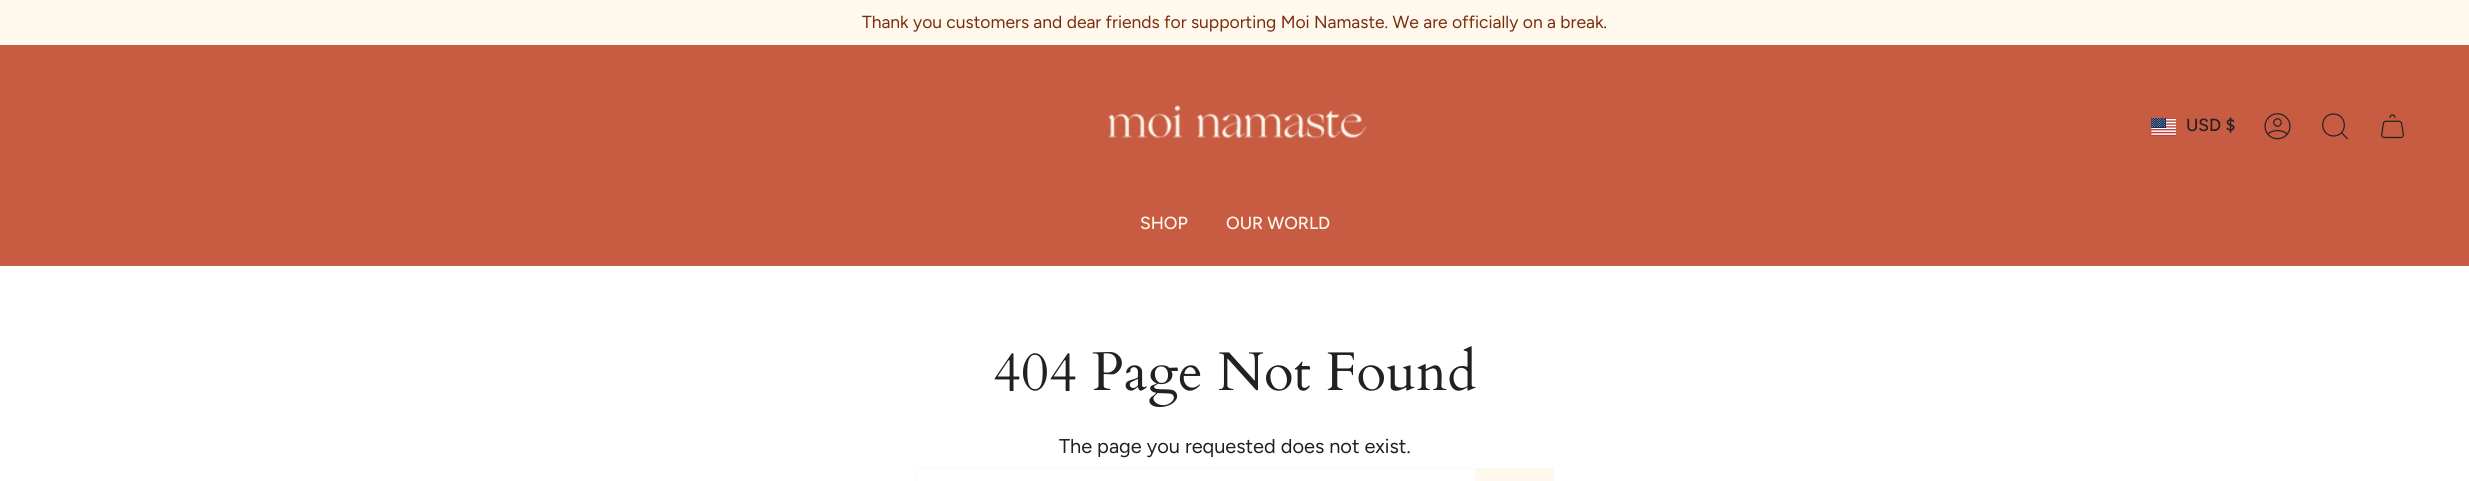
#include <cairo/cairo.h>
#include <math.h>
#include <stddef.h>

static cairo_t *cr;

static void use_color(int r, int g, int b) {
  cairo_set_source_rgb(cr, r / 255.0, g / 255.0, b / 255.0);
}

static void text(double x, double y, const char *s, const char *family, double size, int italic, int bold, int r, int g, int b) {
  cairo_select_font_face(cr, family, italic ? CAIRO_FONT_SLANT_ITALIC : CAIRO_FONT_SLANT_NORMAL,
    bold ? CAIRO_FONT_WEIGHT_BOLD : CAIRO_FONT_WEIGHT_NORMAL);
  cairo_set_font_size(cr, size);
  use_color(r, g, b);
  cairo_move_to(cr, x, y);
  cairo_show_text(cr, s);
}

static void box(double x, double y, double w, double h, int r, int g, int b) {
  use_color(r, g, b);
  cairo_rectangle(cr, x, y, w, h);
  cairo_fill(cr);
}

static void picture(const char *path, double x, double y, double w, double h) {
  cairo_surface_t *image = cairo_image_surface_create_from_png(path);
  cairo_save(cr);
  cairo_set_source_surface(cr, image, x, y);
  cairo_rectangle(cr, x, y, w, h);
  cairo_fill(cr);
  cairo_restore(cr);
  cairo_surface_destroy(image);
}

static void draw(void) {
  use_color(255, 255, 255);
  cairo_paint(cr);
  box(0, 0, 2469, 45, 255, 249, 237);
  box(0, 45, 2469, 221, 200, 92, 66);
  picture("img_01.png", 1108, 105, 259, 34);
  picture("img_02.png", 2151, 118, 25, 18);
  picture("img_03.png", 2264, 113, 27, 27);
  cairo_new_path(cr);
  cairo_move_to(cr, 2333.5, 114);
  cairo_curve_to(cr, 2348, 114, 2348, 136.5, 2333, 136);
  cairo_curve_to(cr, 2319, 135, 2319.5, 114, 2333.5, 114);
  cairo_close_path(cr);
  cairo_move_to(cr, 2341.5, 132.5);
  cairo_line_to(cr, 2347.5, 139);
  use_color(33, 33, 33);
  cairo_set_line_width(cr, 1.2);
  cairo_stroke(cr);
  picture("img_04.png", 2381, 114, 23, 25);
  cairo_rectangle(cr, 916.5, 468.5, 559, 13);
  use_color(255, 249, 237);
  cairo_set_line_width(cr, 1);
  cairo_stroke(cr);
  box(1476, 468, 78, 13, 255, 249, 237);
  text(862, 28, "Thank you customers and dear friends for supporting Moi Namaste. We are officially on a break.", "Figtree", 17.5, 0, 0, 123, 44, 13);
  text(2186, 131, "USD $", "Figtree Medium", 17.5, 0, 0, 33, 33, 33);
  text(1140, 229, "SHOP", "Figtree Medium", 17.5, 0, 0, 255, 249, 237);
  text(1226, 229, "OUR WORLD", "Figtree Medium", 17.5, 0, 0, 255, 249, 237);
  text(993, 390, "404 Page Not Found", "Cardo", 54.6, 0, 0, 33, 33, 33);
  text(1059, 453, "The page you requested does not exist.", "Figtree", 20, 0, 0, 33, 33, 33);
}

int main(void) {
  cairo_surface_t *surface = cairo_image_surface_create(CAIRO_FORMAT_RGB24, 2469, 481);
  cr = cairo_create(surface);
  cairo_font_options_t *options = cairo_font_options_create();
  cairo_font_options_set_hint_metrics(options, CAIRO_HINT_METRICS_OFF);
  cairo_font_options_set_hint_style(options, CAIRO_HINT_STYLE_NONE);
  cairo_set_font_options(cr, options);
  cairo_set_miter_limit(cr, 4);
  draw();
  cairo_surface_write_to_png(surface, "out.png");
  cairo_font_options_destroy(options);
  cairo_destroy(cr);
  cairo_surface_destroy(surface);
  return 0;
}
